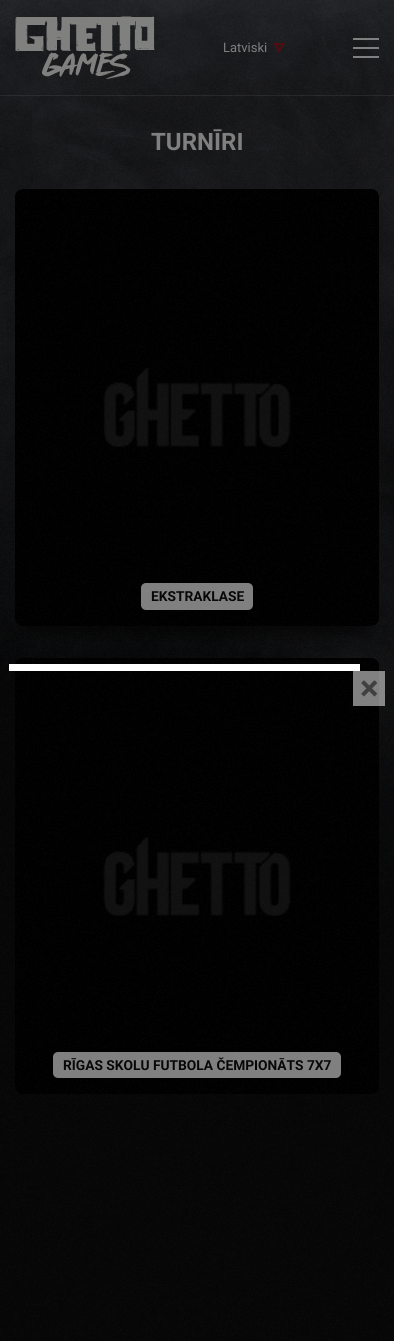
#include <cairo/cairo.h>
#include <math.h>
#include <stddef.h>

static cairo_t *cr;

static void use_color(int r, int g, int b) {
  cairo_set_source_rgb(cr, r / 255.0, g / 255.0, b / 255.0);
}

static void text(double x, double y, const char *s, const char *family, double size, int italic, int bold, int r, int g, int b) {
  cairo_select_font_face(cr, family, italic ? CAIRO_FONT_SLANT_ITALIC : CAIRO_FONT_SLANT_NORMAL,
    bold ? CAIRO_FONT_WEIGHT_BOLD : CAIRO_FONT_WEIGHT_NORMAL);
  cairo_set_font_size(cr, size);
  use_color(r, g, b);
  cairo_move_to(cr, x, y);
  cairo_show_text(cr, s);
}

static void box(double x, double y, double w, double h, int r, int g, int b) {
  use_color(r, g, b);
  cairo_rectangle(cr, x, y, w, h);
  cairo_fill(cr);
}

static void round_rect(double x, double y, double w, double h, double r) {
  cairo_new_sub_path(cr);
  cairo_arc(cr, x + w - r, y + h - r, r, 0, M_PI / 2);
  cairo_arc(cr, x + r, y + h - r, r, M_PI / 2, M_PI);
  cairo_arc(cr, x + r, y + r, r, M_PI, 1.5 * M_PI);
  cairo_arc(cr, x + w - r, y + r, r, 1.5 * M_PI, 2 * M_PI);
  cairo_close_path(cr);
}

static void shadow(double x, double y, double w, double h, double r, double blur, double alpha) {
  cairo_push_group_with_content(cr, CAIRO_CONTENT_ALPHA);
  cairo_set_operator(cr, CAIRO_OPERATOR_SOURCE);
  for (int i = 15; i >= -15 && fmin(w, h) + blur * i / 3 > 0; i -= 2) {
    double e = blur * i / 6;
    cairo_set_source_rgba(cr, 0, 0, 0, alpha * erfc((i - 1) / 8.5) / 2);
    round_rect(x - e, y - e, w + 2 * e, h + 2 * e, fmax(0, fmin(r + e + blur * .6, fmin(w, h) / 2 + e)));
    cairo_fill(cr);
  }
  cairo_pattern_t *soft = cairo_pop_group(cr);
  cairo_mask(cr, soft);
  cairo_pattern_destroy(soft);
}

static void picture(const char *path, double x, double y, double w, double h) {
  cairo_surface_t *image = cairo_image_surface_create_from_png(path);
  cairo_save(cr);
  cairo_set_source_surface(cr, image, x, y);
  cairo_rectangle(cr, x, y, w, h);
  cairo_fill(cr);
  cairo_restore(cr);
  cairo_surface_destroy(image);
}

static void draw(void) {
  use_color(6, 6, 6);
  cairo_paint(cr);
  picture("img_01.png", 0, 0, 394, 894);
  cairo_set_source_rgba(cr, 0.502, 0.502, 0.502, 0.16);
  cairo_rectangle(cr, 0, 95, 394, 1);
  cairo_fill(cr);
  picture("img_03.png", 15, 16, 140, 63);
  picture("img_04.png", 273, 43, 12, 10);
  box(353, 38, 26, 2, 128, 128, 128);
  box(353, 47, 26, 2, 128, 128, 128);
  box(353, 56, 26, 2, 128, 128, 128);
  use_color(0, 0, 0);
  shadow(25, 219, 344, 417, 0, 5, 0.5);
  picture("img_05.png", 15, 189, 364, 437);
  use_color(128, 128, 128);
  round_rect(141, 583, 112, 27, 5);
  cairo_fill(cr);
  picture("img_06.png", 15, 658, 364, 436);
  round_rect(53, 1052, 288, 26, 5);
  cairo_fill(cr);
  text(223, 52, "Latviski", "Roboto", 13, 0, 0, 128, 128, 128);
  text(151, 150, "TURNĪRI", "Roboto", 24, 0, 1, 128, 128, 128);
  text(151, 601, "EKSTRAKLASE", "Roboto", 13.75, 0, 1, 6, 6, 6);
  text(63, 1070, "RĪGAS SKOLU FUTBOLA ČEMPIONĀTS 7X7", "Roboto", 13.75, 0, 1, 6, 6, 6);
  picture("img_02.png", 0, 0, 394, 1341);
  cairo_set_source_rgba(cr, 0, 0, 0, 0.2);
  cairo_rectangle(cr, 379, 670, 7, 2);
  cairo_fill(cr);
  box(9, 664, 351, 7, 255, 255, 255);
  cairo_set_source_rgba(cr, 1, 1, 1, 0.5);
  cairo_rectangle(cr, 353, 671, 32, 35);
  cairo_fill(cr);
  text(360, 700, "×", "Roboto", 35, 0, 1, 64, 64, 64);
}

int main(void) {
  cairo_surface_t *surface = cairo_image_surface_create(CAIRO_FORMAT_RGB24, 394, 1341);
  cr = cairo_create(surface);
  cairo_font_options_t *options = cairo_font_options_create();
  cairo_font_options_set_hint_metrics(options, CAIRO_HINT_METRICS_OFF);
  cairo_font_options_set_hint_style(options, CAIRO_HINT_STYLE_NONE);
  cairo_set_font_options(cr, options);
  cairo_set_miter_limit(cr, 4);
  draw();
  cairo_surface_write_to_png(surface, "out.png");
  cairo_font_options_destroy(options);
  cairo_destroy(cr);
  cairo_surface_destroy(surface);
  return 0;
}
